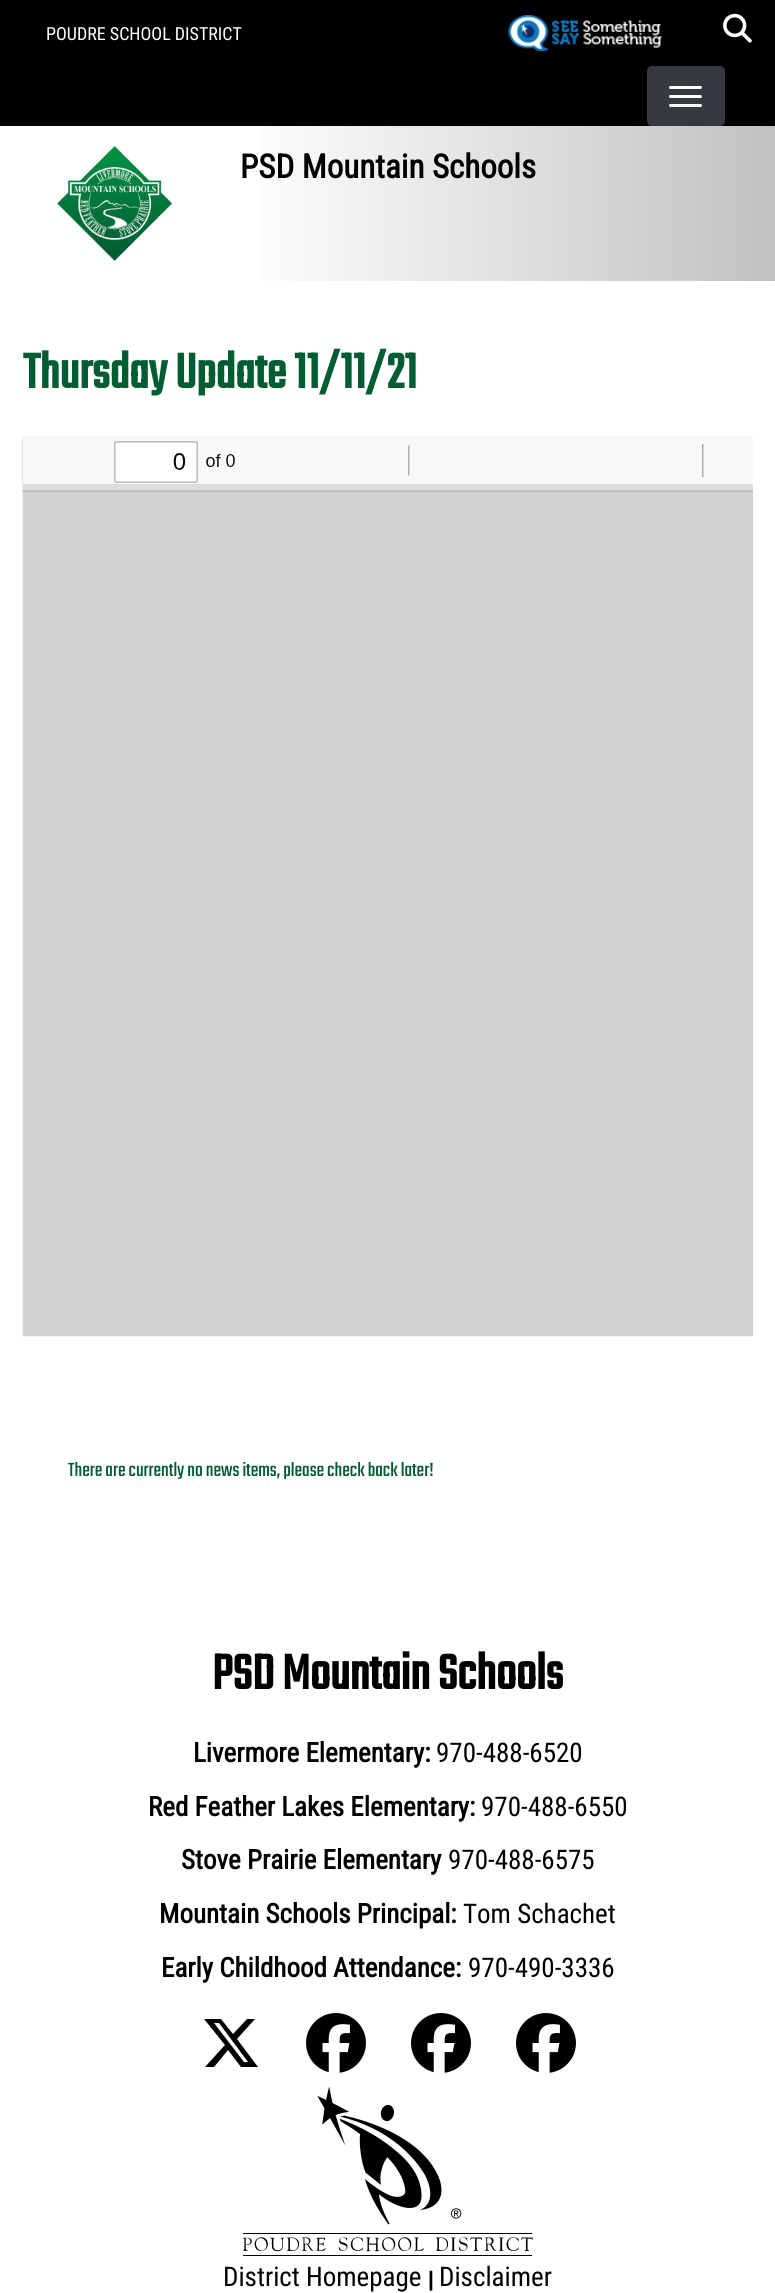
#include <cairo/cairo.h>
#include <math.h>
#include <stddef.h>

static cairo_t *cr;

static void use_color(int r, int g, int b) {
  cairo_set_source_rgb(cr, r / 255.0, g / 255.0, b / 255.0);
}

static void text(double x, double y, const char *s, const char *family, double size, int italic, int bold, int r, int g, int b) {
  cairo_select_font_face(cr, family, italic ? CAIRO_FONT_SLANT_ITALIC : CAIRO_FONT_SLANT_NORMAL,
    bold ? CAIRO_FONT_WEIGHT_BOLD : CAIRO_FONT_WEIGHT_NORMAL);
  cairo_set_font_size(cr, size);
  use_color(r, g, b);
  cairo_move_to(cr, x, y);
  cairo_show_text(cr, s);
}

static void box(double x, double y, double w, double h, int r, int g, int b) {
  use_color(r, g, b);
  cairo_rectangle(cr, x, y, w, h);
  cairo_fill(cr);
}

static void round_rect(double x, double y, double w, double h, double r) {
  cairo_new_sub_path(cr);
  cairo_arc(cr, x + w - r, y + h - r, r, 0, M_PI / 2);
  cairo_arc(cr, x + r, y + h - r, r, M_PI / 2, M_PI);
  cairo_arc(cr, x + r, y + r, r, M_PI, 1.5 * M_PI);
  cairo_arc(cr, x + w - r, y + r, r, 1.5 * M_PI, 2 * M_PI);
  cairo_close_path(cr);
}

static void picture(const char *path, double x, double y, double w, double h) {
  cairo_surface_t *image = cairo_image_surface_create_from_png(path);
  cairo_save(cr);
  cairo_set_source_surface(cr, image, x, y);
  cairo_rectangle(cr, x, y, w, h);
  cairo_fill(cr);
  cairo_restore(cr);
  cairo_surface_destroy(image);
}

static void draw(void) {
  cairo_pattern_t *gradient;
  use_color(255, 255, 255);
  cairo_paint(cr);
  gradient = cairo_pattern_create_linear(0, 140, 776, 140);
  cairo_pattern_add_color_stop_rgba(gradient, 0.31, 1, 1, 1, 1);
  cairo_pattern_add_color_stop_rgba(gradient, 1, 0.757, 0.757, 0.757, 1);
  cairo_set_source(cr, gradient);
  cairo_pattern_destroy(gradient);
  cairo_rectangle(cr, 262, 126, 513, 155);
  cairo_fill(cr);
  box(0, 0, 775, 126, 0, 0, 0);
  picture("img_01.png", 508, 15, 154, 36);
  picture("img_02.png", 723, 13, 29, 30);
  use_color(52, 58, 64);
  round_rect(647, 66, 78, 60, 5);
  cairo_fill(cr);
  use_color(255, 255, 255);
  round_rect(669, 86, 33, 3, 1.5);
  cairo_fill(cr);
  round_rect(669, 95, 33, 3, 1.5);
  cairo_fill(cr);
  round_rect(669, 104, 33, 3, 1.5);
  cairo_fill(cr);
  picture("img_03.png", 57, 146, 116, 115);
  picture("img_04.png", 22, 436, 731, 901);
  use_color(0, 0, 0);
  cairo_new_path(cr);
  cairo_move_to(cr, 247, 2019);
  cairo_line_to(cr, 255, 2019);
  cairo_line_to(cr, 247, 2019);
  cairo_line_to(cr, 255, 2019);
  cairo_line_to(cr, 237, 2039);
  cairo_line_to(cr, 258, 2067);
  cairo_line_to(cr, 241, 2067);
  cairo_line_to(cr, 228, 2050);
  cairo_line_to(cr, 214, 2067);
  cairo_line_to(cr, 205, 2067);
  cairo_line_to(cr, 225, 2045);
  cairo_line_to(cr, 204, 2019);
  cairo_line_to(cr, 221, 2019);
  cairo_line_to(cr, 233, 2034);
  cairo_close_path(cr);
  cairo_move_to(cr, 244, 2062);
  cairo_line_to(cr, 248, 2062);
  cairo_line_to(cr, 244, 2062);
  cairo_line_to(cr, 248, 2062);
  cairo_line_to(cr, 219, 2023);
  cairo_line_to(cr, 214, 2023);
  cairo_close_path(cr);
  cairo_fill(cr);
  picture("img_05.png", 306, 2013, 60, 60);
  picture("img_05.png", 411, 2013, 60, 60);
  picture("img_05.png", 516, 2013, 60, 60);
  picture("img_06.png", 242, 2086, 291, 170);
  text(46, 40, "POUDRE SCHOOL DISTRICT", "Roboto Condensed", 18, 0, 0, 255, 255, 255);
  text(240, 178, "PSD Mountain Schools", "Roboto Condensed", 33, 0, 1, 0, 0, 0);
  text(23, 388, "Thursday Update 11/11/21", "Teko", 54, 0, 1, 0, 93, 49);
  text(68, 1476, "There are currently no news items, please check back later!", "Teko Light", 21, 0, 0, 0, 93, 49);
  text(212, 1689, "PSD Mountain Schools", "Teko", 54, 0, 1, 0, 0, 0);
  text(193, 1762, "Livermore Elementary:", "Roboto Condensed", 27, 0, 1, 0, 0, 0);
  text(436, 1762, "970-488-6520", "Roboto Condensed", 27, 0, 0, 0, 0, 0);
  text(148, 1816, "Red Feather Lakes Elementary:", "Roboto Condensed", 27, 0, 1, 0, 0, 0);
  text(481, 1816, "970-488-6550", "Roboto Condensed", 27, 0, 0, 0, 0, 0);
  text(181, 1869, "Stove Prairie Elementary", "Roboto Condensed", 27, 0, 1, 0, 0, 0);
  text(448, 1869, "970-488-6575", "Roboto Condensed", 27, 0, 0, 0, 0, 0);
  text(159, 1923, "Mountain Schools Principal:", "Roboto Condensed", 27, 0, 1, 0, 0, 0);
  text(463, 1923, "Tom Schachet", "Roboto Condensed", 27, 0, 0, 0, 0, 0);
  text(161, 1977, "Early Childhood Attendance:", "Roboto Condensed", 27, 0, 1, 0, 0, 0);
  text(468, 1977, "970-490-3336", "Roboto Condensed", 27, 0, 0, 0, 0, 0);
  text(223, 2286, "District Homepage", "Roboto Condensed", 27, 0, 0, 0, 0, 0);
  text(428, 2286, "|", "Liberation Sans", 21, 0, 1, 0, 0, 0);
  text(439, 2286, "Disclaimer", "Roboto Condensed", 27, 0, 0, 0, 0, 0);
}

int main(void) {
  cairo_surface_t *surface = cairo_image_surface_create(CAIRO_FORMAT_RGB24, 775, 2293);
  cr = cairo_create(surface);
  cairo_font_options_t *options = cairo_font_options_create();
  cairo_font_options_set_hint_metrics(options, CAIRO_HINT_METRICS_OFF);
  cairo_font_options_set_hint_style(options, CAIRO_HINT_STYLE_NONE);
  cairo_set_font_options(cr, options);
  cairo_set_miter_limit(cr, 4);
  draw();
  cairo_surface_write_to_png(surface, "out.png");
  cairo_font_options_destroy(options);
  cairo_destroy(cr);
  cairo_surface_destroy(surface);
  return 0;
}
